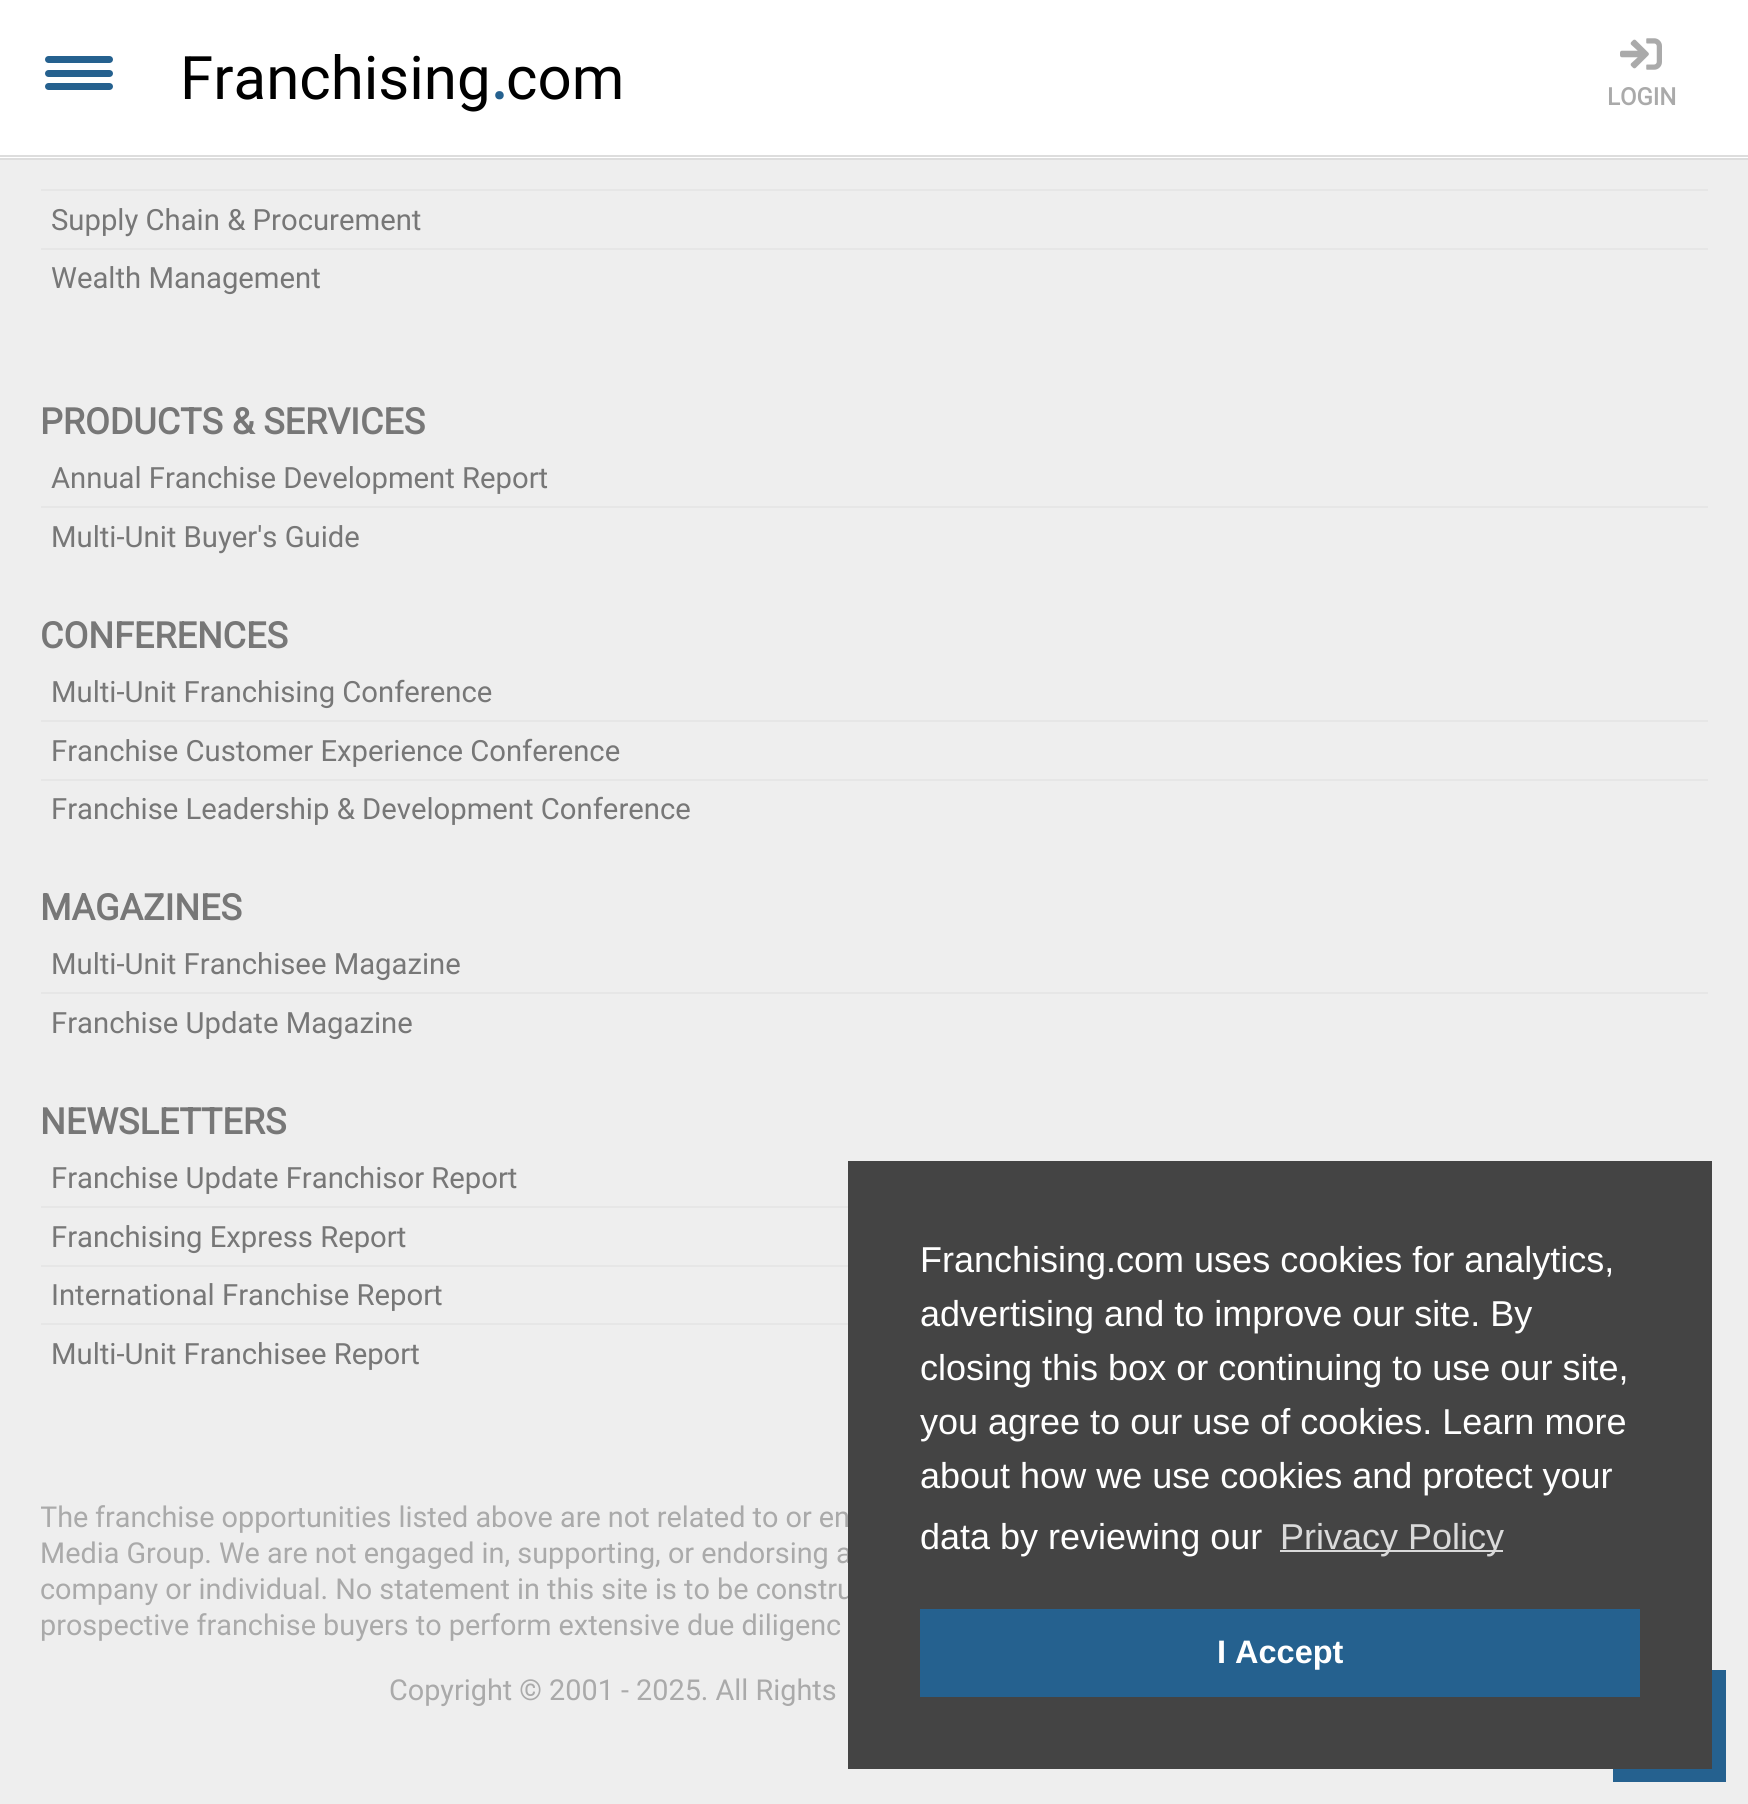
#include <cairo/cairo.h>
#include <math.h>
#include <stddef.h>

static cairo_t *cr;

static void use_color(int r, int g, int b) {
  cairo_set_source_rgb(cr, r / 255.0, g / 255.0, b / 255.0);
}

static void text(double x, double y, const char *s, const char *family, double size, int italic, int bold, int r, int g, int b) {
  cairo_select_font_face(cr, family, italic ? CAIRO_FONT_SLANT_ITALIC : CAIRO_FONT_SLANT_NORMAL,
    bold ? CAIRO_FONT_WEIGHT_BOLD : CAIRO_FONT_WEIGHT_NORMAL);
  cairo_set_font_size(cr, size);
  use_color(r, g, b);
  cairo_move_to(cr, x, y);
  cairo_show_text(cr, s);
}

static void box(double x, double y, double w, double h, int r, int g, int b) {
  use_color(r, g, b);
  cairo_rectangle(cr, x, y, w, h);
  cairo_fill(cr);
}

static void round_rect(double x, double y, double w, double h, double r) {
  cairo_new_sub_path(cr);
  cairo_arc(cr, x + w - r, y + h - r, r, 0, M_PI / 2);
  cairo_arc(cr, x + r, y + h - r, r, M_PI / 2, M_PI);
  cairo_arc(cr, x + r, y + r, r, M_PI, 1.5 * M_PI);
  cairo_arc(cr, x + w - r, y + r, r, 1.5 * M_PI, 2 * M_PI);
  cairo_close_path(cr);
}

static void picture(const char *path, double x, double y, double w, double h) {
  cairo_surface_t *image = cairo_image_surface_create_from_png(path);
  cairo_save(cr);
  cairo_set_source_surface(cr, image, x, y);
  cairo_rectangle(cr, x, y, w, h);
  cairo_fill(cr);
  cairo_restore(cr);
  cairo_surface_destroy(image);
}

static void draw(void) {
  use_color(238, 238, 238);
  cairo_paint(cr);
  box(0, 158, 1748, 2, 221, 221, 221);
  box(0, 0, 1748, 158, 255, 255, 255);
  box(0, 155, 1748, 2, 221, 221, 221);
  use_color(37, 97, 143);
  round_rect(45, 56, 68, 7, 3.5);
  cairo_fill(cr);
  round_rect(45, 70, 68, 7, 3.5);
  cairo_fill(cr);
  round_rect(45, 83, 68, 7, 3.5);
  cairo_fill(cr);
  picture("img_01.png", 1620, 38, 42, 32);
  box(41, 189, 1667, 2, 230, 230, 230);
  box(41, 248, 1667, 2, 230, 230, 230);
  box(41, 506, 1667, 2, 230, 230, 230);
  box(41, 720, 1667, 2, 230, 230, 230);
  box(41, 779, 1667, 2, 230, 230, 230);
  box(41, 992, 1667, 2, 230, 230, 230);
  box(41, 1206, 807, 2, 230, 230, 230);
  box(41, 1265, 807, 2, 230, 230, 230);
  box(41, 1323, 807, 2, 230, 230, 230);
  box(1613, 1670, 113, 112, 37, 97, 143);
  text(180, 99, "Franchising", "Roboto", 60, 0, 0, 0, 0, 0);
  text(491, 99, ".", "Roboto", 60, 0, 1, 37, 97, 143);
  text(506, 99, "com", "Roboto", 60, 0, 0, 0, 0, 0);
  text(1607, 105, "LOGIN", "Roboto", 24, 0, 1, 170, 170, 170);
  text(51, 230, "Supply Chain & Procurement", "Roboto", 29.25, 0, 0, 119, 119, 119);
  text(51, 288, "Wealth Management", "Roboto", 29.25, 0, 0, 119, 119, 119);
  text(40, 434, "PRODUCTS & SERVICES", "Roboto", 36, 0, 1, 119, 119, 119);
  text(51, 488, "Annual Franchise Development Report", "Roboto", 29.25, 0, 0, 119, 119, 119);
  text(51, 547, "Multi-Unit Buyer's Guide", "Roboto", 29.25, 0, 0, 119, 119, 119);
  text(40, 648, "CONFERENCES", "Roboto", 36, 0, 1, 119, 119, 119);
  text(51, 702, "Multi-Unit Franchising Conference", "Roboto", 29.25, 0, 0, 119, 119, 119);
  text(51, 761, "Franchise Customer Experience Conference", "Roboto", 29.25, 0, 0, 119, 119, 119);
  text(51, 819, "Franchise Leadership & Development Conference", "Roboto", 29.25, 0, 0, 119, 119, 119);
  text(40, 920, "MAGAZINES", "Roboto", 36, 0, 1, 119, 119, 119);
  text(51, 974, "Multi-Unit Franchisee Magazine", "Roboto", 29.25, 0, 0, 119, 119, 119);
  text(51, 1033, "Franchise Update Magazine", "Roboto", 29.25, 0, 0, 119, 119, 119);
  text(40, 1134, "NEWSLETTERS", "Roboto", 36, 0, 1, 119, 119, 119);
  text(51, 1188, "Franchise Update Franchisor Report", "Roboto", 29.25, 0, 0, 119, 119, 119);
  text(51, 1247, "Franchising Express Report", "Roboto", 29.25, 0, 0, 119, 119, 119);
  text(51, 1305, "International Franchise Report", "Roboto", 29.25, 0, 0, 119, 119, 119);
  text(51, 1364, "Multi-Unit Franchisee Report", "Roboto", 29.25, 0, 0, 119, 119, 119);
  cairo_save(cr);
  cairo_rectangle(cr, 41, 1472, 1667, 265);
  cairo_clip(cr);
  text(40, 1527, "The", "Roboto", 28.8, 0, 0, 170, 170, 170);
  cairo_restore(cr);
  text(95, 1527, "franchise opportunities listed above are not related to or en", "Roboto", 28.8, 0, 0, 170, 170, 170);
  text(40, 1563, "Media Group. We are not engaged in, supporting, or endorsing a", "Roboto", 28.8, 0, 0, 170, 170, 170);
  text(40, 1599, "company or individual. No statement in this site is to be constru", "Roboto", 28.8, 0, 0, 170, 170, 170);
  text(40, 1635, "prospective franchise buyers to perform extensive due diligenc", "Roboto", 28.8, 0, 0, 170, 170, 170);
  text(389, 1700, "Copyright © 2001 - 2025. All Rights", "Roboto", 28.8, 0, 0, 170, 170, 170);
  box(848, 1161, 864, 608, 68, 68, 68);
  text(920, 1272, "Franchising.com uses cookies for analytics,", "Liberation Sans", 36, 0, 0, 255, 255, 255);
  text(920, 1326, "advertising and to improve our site. By", "Liberation Sans", 36, 0, 0, 255, 255, 255);
  text(920, 1380, "closing this box or continuing to use our site,", "Liberation Sans", 36, 0, 0, 255, 255, 255);
  text(920, 1434, "you agree to our use of cookies. Learn more", "Liberation Sans", 36, 0, 0, 255, 255, 255);
  text(920, 1488, "about how we use cookies and protect your", "Liberation Sans", 36, 0, 0, 255, 255, 255);
  text(920, 1549, "data by reviewing our", "Liberation Sans", 36, 0, 0, 255, 255, 255);
  box(1280, 1550, 223, 2, 218, 218, 218);
  text(1280, 1549, "Privacy Policy", "Liberation Sans", 36, 0, 0, 218, 218, 218);
  box(920, 1609, 720, 88, 37, 97, 143);
  text(1217, 1663, "I Accept", "Liberation Sans", 32.5, 0, 1, 255, 255, 255);
}

int main(void) {
  cairo_surface_t *surface = cairo_image_surface_create(CAIRO_FORMAT_RGB24, 1748, 1804);
  cr = cairo_create(surface);
  cairo_font_options_t *options = cairo_font_options_create();
  cairo_font_options_set_hint_metrics(options, CAIRO_HINT_METRICS_OFF);
  cairo_font_options_set_hint_style(options, CAIRO_HINT_STYLE_NONE);
  cairo_set_font_options(cr, options);
  cairo_set_miter_limit(cr, 4);
  draw();
  cairo_surface_write_to_png(surface, "out.png");
  cairo_font_options_destroy(options);
  cairo_destroy(cr);
  cairo_surface_destroy(surface);
  return 0;
}
